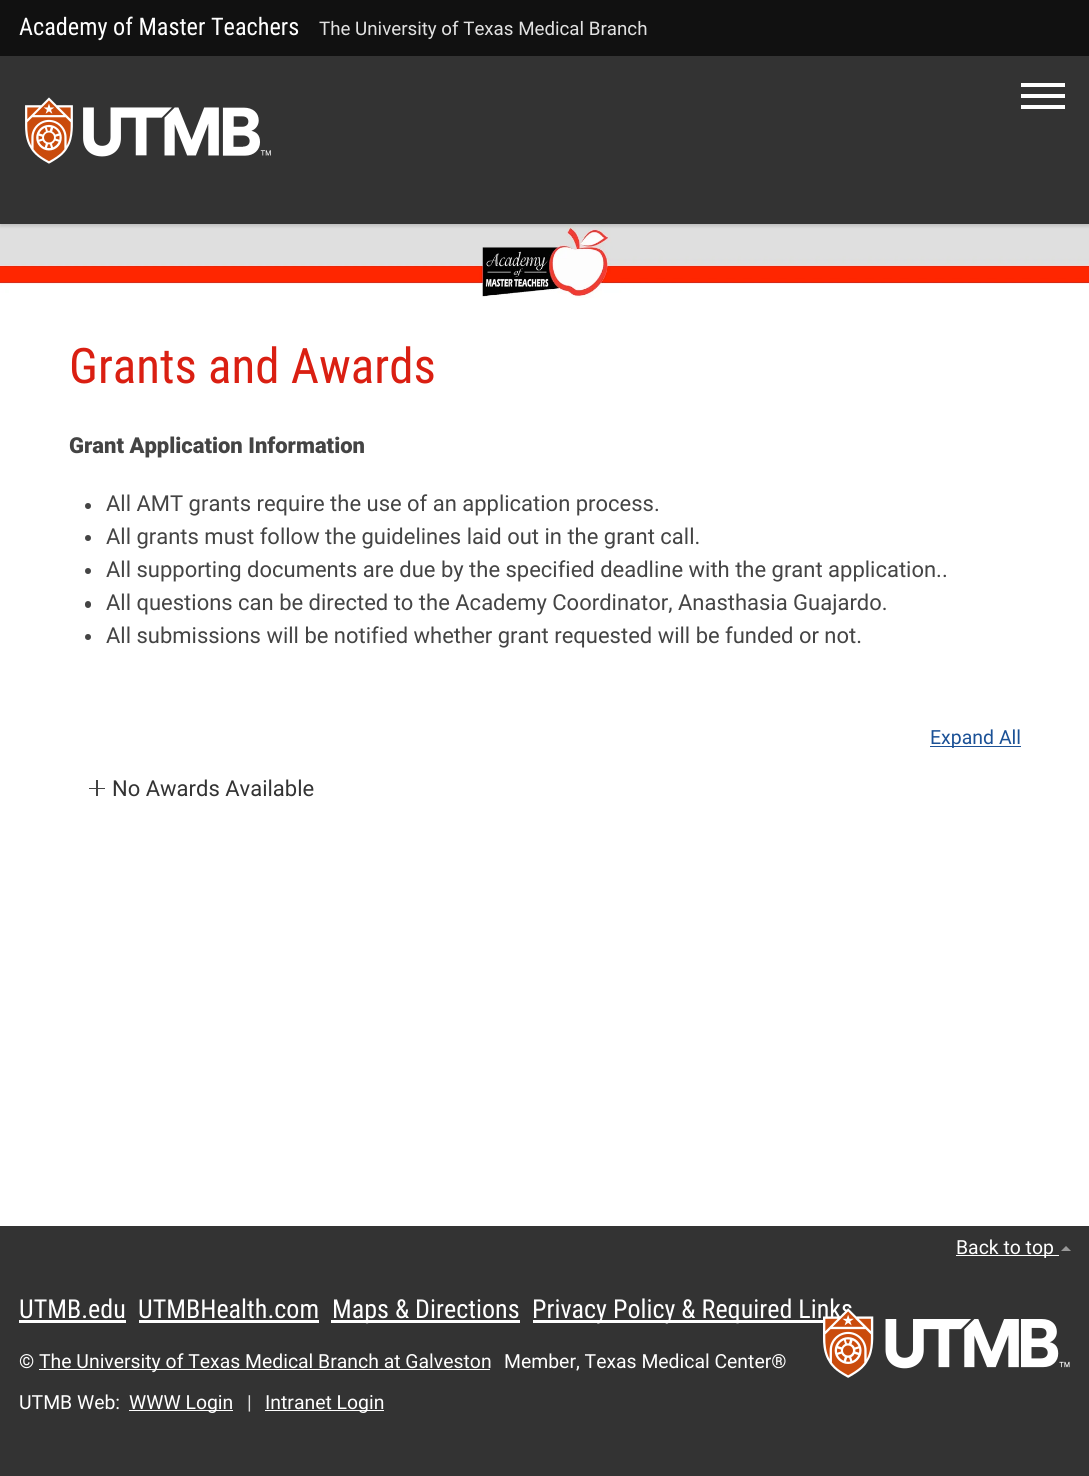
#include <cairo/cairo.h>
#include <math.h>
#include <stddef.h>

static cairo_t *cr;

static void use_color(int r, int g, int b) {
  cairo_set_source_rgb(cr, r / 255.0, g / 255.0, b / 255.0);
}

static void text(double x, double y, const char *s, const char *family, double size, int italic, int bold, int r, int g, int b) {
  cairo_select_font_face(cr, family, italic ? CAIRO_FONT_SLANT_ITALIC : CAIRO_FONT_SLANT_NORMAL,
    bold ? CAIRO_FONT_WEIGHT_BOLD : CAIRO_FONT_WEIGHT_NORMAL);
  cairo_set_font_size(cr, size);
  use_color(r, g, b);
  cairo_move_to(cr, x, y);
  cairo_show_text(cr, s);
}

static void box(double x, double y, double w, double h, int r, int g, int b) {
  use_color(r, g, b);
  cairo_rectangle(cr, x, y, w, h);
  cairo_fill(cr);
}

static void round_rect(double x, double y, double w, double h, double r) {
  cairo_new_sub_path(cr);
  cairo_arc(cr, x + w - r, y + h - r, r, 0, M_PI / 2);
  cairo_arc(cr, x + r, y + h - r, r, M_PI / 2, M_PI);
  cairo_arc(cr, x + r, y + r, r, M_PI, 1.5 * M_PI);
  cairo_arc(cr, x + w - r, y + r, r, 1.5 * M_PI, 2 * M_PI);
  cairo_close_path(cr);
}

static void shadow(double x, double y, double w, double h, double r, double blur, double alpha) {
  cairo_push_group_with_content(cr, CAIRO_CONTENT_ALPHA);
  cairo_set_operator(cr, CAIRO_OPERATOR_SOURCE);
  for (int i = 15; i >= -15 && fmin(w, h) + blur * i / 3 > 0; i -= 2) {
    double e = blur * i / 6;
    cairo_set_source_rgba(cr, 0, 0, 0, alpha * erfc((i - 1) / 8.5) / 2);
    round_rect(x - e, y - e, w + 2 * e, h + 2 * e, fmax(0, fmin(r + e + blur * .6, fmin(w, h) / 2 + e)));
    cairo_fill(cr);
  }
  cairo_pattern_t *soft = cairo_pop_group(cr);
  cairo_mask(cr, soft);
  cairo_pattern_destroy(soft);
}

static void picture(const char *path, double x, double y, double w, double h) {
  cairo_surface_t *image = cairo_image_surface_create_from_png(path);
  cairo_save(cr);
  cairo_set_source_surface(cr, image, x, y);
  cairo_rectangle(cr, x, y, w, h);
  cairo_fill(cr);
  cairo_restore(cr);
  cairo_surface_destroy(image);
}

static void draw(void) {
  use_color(255, 255, 255);
  cairo_paint(cr);
  box(0, 0, 1089, 56, 17, 17, 17);
  picture("img_02.png", 0, 224, 1089, 74);
  use_color(0, 0, 0);
  shadow(0, 59, 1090, 167, 0, 2, 0.16);
  box(0, 56, 1089, 168, 51, 51, 51);
  picture("img_01.png", 25, 97, 246, 67);
  box(1021, 83, 44, 4, 255, 255, 255);
  box(1021, 94, 44, 4, 255, 255, 255);
  box(1021, 105, 44, 4, 255, 255, 255);
  use_color(68, 68, 68);
  cairo_arc(cr, 88, 506, 3, 0, 2 * M_PI);
  cairo_fill(cr);
  cairo_arc(cr, 88, 538, 3, 0, 2 * M_PI);
  cairo_fill(cr);
  cairo_arc(cr, 88, 571, 3, 0, 2 * M_PI);
  cairo_fill(cr);
  round_rect(85, 601, 6, 7, 3);
  cairo_fill(cr);
  cairo_arc(cr, 88, 637, 3, 0, 2 * M_PI);
  cairo_fill(cr);
  box(930, 746, 91, 1, 27, 81, 150);
  box(89, 788, 16, 1, 68, 68, 68);
  box(96, 780, 2, 16, 68, 68, 68);
  box(0, 1226, 1089, 250, 51, 51, 51);
  box(956, 1255, 103, 1, 255, 255, 255);
  use_color(153, 153, 153);
  cairo_new_path(cr);
  cairo_move_to(cr, 1071, 1251);
  cairo_line_to(cr, 1061, 1251);
  cairo_line_to(cr, 1066, 1246);
  cairo_close_path(cr);
  cairo_fill(cr);
  box(19, 1320, 107, 3, 255, 255, 255);
  box(139, 1320, 180, 3, 255, 255, 255);
  box(331, 1320, 189, 3, 255, 255, 255);
  box(533, 1320, 290, 3, 255, 255, 255);
  box(39, 1369, 451, 1, 255, 255, 255);
  box(129, 1410, 104, 1, 255, 255, 255);
  box(265, 1410, 119, 1, 255, 255, 255);
  text(19, 35, "Academy of Master Teachers", "Roboto Condensed", 24.25, 0, 0, 255, 255, 255);
  text(319, 35, "The University of Texas Medical Branch", "Roboto", 18.75, 0, 0, 226, 226, 226);
  text(69, 383, "Grants and Awards", "Roboto Condensed", 49, 0, 0, 218, 31, 18);
  text(69, 453, "Grant Application Information", "Roboto Black", 22, 0, 0, 68, 68, 68);
  text(106, 511, "All AMT grants require the use of an application process.", "Roboto", 22, 0, 0, 68, 68, 68);
  text(106, 544, "All grants must follow the guidelines laid out in the grant call.", "Roboto", 22, 0, 0, 68, 68, 68);
  text(106, 577, "All supporting documents are due by the specified deadline with the grant application..", "Roboto", 22, 0, 0, 68, 68, 68);
  text(106, 610, "All questions can be directed to the Academy Coordinator, Anasthasia Guajardo.", "Roboto", 22, 0, 0, 68, 68, 68);
  text(106, 643, "All submissions will be notified whether grant requested will be funded or not.", "Roboto", 22, 0, 0, 68, 68, 68);
  text(930, 744, "Expand All", "Roboto", 19.5, 0, 0, 27, 81, 150);
  text(112, 796, "No Awards Available", "Roboto", 22, 0, 0, 51, 51, 51);
  text(956, 1254, "Back to top", "Roboto", 19.4, 0, 0, 255, 255, 255);
  text(19, 1318, "UTMB.edu", "Roboto Condensed", 26.1, 0, 0, 255, 255, 255);
  text(138, 1318, "UTMBHealth.com", "Roboto Condensed", 26.1, 0, 0, 255, 255, 255);
  text(332, 1318, "Maps & Directions", "Roboto Condensed", 26.1, 0, 0, 255, 255, 255);
  text(532, 1318, "Privacy Policy & Required Links", "Roboto Condensed", 26.1, 0, 0, 255, 255, 255);
  picture("img_03.png", 823, 1308, 247, 70);
  text(19, 1368, "©", "Roboto", 19.4, 0, 0, 255, 255, 255);
  text(39, 1368, "The University of Texas Medical Branch at Galveston", "Roboto", 19.4, 0, 0, 255, 255, 255);
  text(504, 1368, "Member, Texas Medical Center®", "Roboto", 19.4, 0, 0, 255, 255, 255);
  text(19, 1409, "UTMB Web:", "Roboto", 19.4, 0, 0, 255, 255, 255);
  text(129, 1409, "WWW Login", "Roboto", 19.4, 0, 0, 255, 255, 255);
  text(247, 1409, "|", "Roboto", 19.4, 0, 0, 226, 226, 226);
  text(265, 1409, "Intranet Login", "Roboto", 19.4, 0, 0, 255, 255, 255);
}

int main(void) {
  cairo_surface_t *surface = cairo_image_surface_create(CAIRO_FORMAT_RGB24, 1089, 1476);
  cr = cairo_create(surface);
  cairo_font_options_t *options = cairo_font_options_create();
  cairo_font_options_set_hint_metrics(options, CAIRO_HINT_METRICS_OFF);
  cairo_font_options_set_hint_style(options, CAIRO_HINT_STYLE_NONE);
  cairo_set_font_options(cr, options);
  cairo_set_miter_limit(cr, 4);
  draw();
  cairo_surface_write_to_png(surface, "out.png");
  cairo_font_options_destroy(options);
  cairo_destroy(cr);
  cairo_surface_destroy(surface);
  return 0;
}
